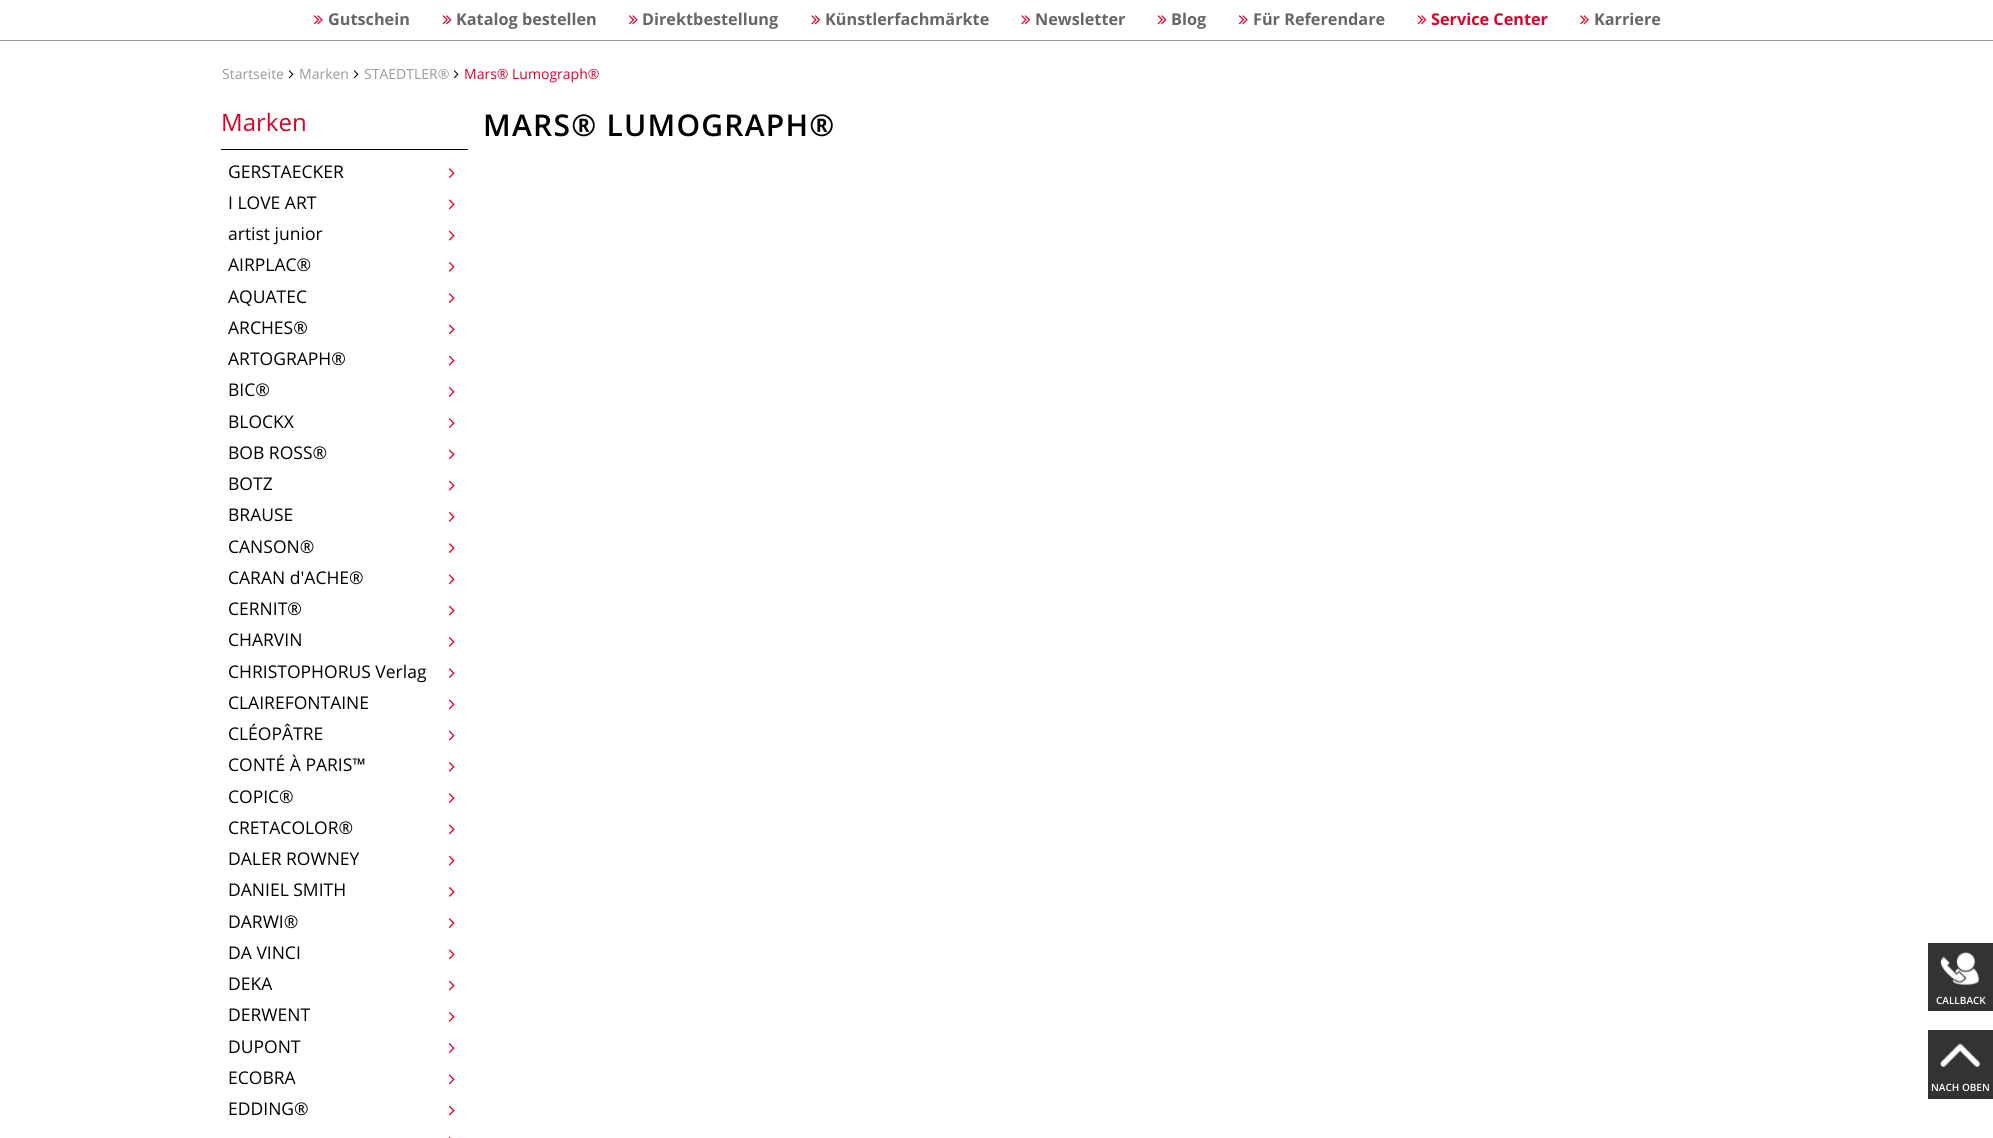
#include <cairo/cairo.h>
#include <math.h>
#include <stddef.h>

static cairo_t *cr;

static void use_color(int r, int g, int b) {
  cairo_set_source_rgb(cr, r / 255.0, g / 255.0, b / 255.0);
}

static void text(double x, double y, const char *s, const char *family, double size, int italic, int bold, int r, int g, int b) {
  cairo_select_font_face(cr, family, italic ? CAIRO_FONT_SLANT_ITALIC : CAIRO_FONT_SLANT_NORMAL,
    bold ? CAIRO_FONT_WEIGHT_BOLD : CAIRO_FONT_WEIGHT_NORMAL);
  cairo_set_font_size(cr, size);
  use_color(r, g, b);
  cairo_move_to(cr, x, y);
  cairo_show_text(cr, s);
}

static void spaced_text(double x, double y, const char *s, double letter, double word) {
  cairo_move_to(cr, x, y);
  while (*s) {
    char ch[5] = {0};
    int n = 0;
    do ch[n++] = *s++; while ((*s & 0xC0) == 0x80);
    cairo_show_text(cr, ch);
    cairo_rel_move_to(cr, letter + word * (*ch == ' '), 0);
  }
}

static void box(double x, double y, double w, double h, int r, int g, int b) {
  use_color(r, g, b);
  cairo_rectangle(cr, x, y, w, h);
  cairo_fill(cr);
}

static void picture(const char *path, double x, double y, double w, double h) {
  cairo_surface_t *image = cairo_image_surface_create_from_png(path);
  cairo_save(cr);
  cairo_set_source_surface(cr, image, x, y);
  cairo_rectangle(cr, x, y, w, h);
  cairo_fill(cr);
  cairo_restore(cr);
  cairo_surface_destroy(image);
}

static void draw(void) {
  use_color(255, 255, 255);
  cairo_paint(cr);
  box(0, 40, 1993, 1, 153, 153, 153);
  picture("img_01.png", 313, 15, 10, 10);
  picture("img_02.png", 442, 15, 10, 10);
  picture("img_01.png", 628, 15, 10, 10);
  picture("img_03.png", 811, 15, 10, 10);
  picture("img_03.png", 1021, 15, 10, 10);
  picture("img_02.png", 1157, 15, 10, 10);
  picture("img_01.png", 1238, 15, 10, 10);
  picture("img_02.png", 1417, 15, 10, 10);
  picture("img_04.png", 1580, 15, 9, 10);
  picture("img_05.png", 288, 70, 6, 9);
  picture("img_05.png", 353, 70, 6, 9);
  picture("img_05.png", 453, 70, 6, 9);
  box(221, 149, 247, 1, 0, 0, 0);
  picture("img_06.png", 448, 168, 7, 10);
  picture("img_07.png", 448, 199, 7, 11);
  picture("img_08.png", 448, 230, 7, 11);
  picture("img_09.png", 448, 262, 7, 10);
  picture("img_06.png", 448, 293, 7, 10);
  picture("img_07.png", 448, 324, 7, 11);
  picture("img_08.png", 448, 355, 7, 11);
  picture("img_09.png", 448, 387, 7, 10);
  picture("img_06.png", 448, 418, 7, 10);
  picture("img_07.png", 448, 449, 7, 11);
  picture("img_08.png", 448, 480, 7, 11);
  picture("img_09.png", 448, 512, 7, 10);
  picture("img_06.png", 448, 543, 7, 10);
  picture("img_07.png", 448, 574, 7, 11);
  picture("img_08.png", 448, 605, 7, 11);
  picture("img_09.png", 448, 637, 7, 10);
  picture("img_06.png", 448, 668, 7, 10);
  picture("img_07.png", 448, 699, 7, 11);
  picture("img_08.png", 448, 730, 7, 11);
  picture("img_09.png", 448, 762, 7, 10);
  picture("img_06.png", 448, 793, 7, 10);
  picture("img_07.png", 448, 824, 7, 11);
  picture("img_08.png", 448, 855, 7, 11);
  picture("img_09.png", 448, 887, 7, 10);
  picture("img_06.png", 448, 918, 7, 10);
  picture("img_07.png", 448, 949, 7, 11);
  picture("img_08.png", 448, 980, 7, 11);
  picture("img_09.png", 448, 1012, 7, 10);
  picture("img_06.png", 448, 1043, 7, 10);
  picture("img_07.png", 448, 1074, 7, 11);
  picture("img_08.png", 448, 1105, 7, 11);
  picture("img_10.png", 448, 1137, 3, 1);
  box(1928, 943, 65, 68, 51, 51, 51);
  picture("img_11.png", 1940, 952, 40, 33);
  box(1928, 1030, 65, 69, 51, 51, 51);
  picture("img_12.png", 1940, 1043, 40, 24);
  text(328, 25, "Gutschein", "Open Sans", 16.25, 0, 1, 102, 102, 102);
  text(456, 25, "Katalog bestellen", "Open Sans", 16.25, 0, 1, 102, 102, 102);
  text(642, 25, "Direktbestellung", "Open Sans", 16.25, 0, 1, 102, 102, 102);
  text(825, 25, "Künstlerfachmärkte", "Open Sans", 16.25, 0, 1, 102, 102, 102);
  text(1035, 25, "Newsletter", "Open Sans", 16.25, 0, 1, 102, 102, 102);
  text(1171, 25, "Blog", "Open Sans", 16.25, 0, 1, 102, 102, 102);
  text(1253, 25, "Für Referendare", "Open Sans", 16.25, 0, 1, 102, 102, 102);
  text(1431, 25, "Service Center", "Open Sans", 16.25, 0, 1, 223, 0, 41);
  text(1594, 25, "Karriere", "Open Sans", 16.25, 0, 1, 102, 102, 102);
  text(222, 79, "Startseite", "Open Sans", 14, 0, 0, 153, 153, 153);
  text(299, 79, "Marken", "Open Sans", 14, 0, 0, 153, 153, 153);
  text(364, 79, "STAEDTLER®", "Open Sans", 14, 0, 0, 153, 153, 153);
  text(464, 79, "Mars® Lumograph®", "Open Sans", 14, 0, 0, 223, 0, 41);
  text(221, 131, "Marken", "Open Sans", 24, 0, 0, 223, 0, 41);
  text(228, 178, "GERSTAECKER", "Open Sans", 17.5, 0, 0, 0, 0, 0);
  text(228, 209, "I LOVE ART", "Open Sans", 17.5, 0, 0, 0, 0, 0);
  text(228, 240, "artist junior", "Open Sans", 17.5, 0, 0, 0, 0, 0);
  text(228, 271, "AIRPLAC®", "Open Sans", 17.5, 0, 0, 0, 0, 0);
  text(228, 303, "AQUATEC", "Open Sans", 17.5, 0, 0, 0, 0, 0);
  text(228, 334, "ARCHES®", "Open Sans", 17.5, 0, 0, 0, 0, 0);
  text(228, 365, "ARTOGRAPH®", "Open Sans", 17.5, 0, 0, 0, 0, 0);
  text(228, 396, "BIC®", "Open Sans", 17.5, 0, 0, 0, 0, 0);
  text(228, 428, "BLOCKX", "Open Sans", 17.5, 0, 0, 0, 0, 0);
  text(228, 459, "BOB ROSS®", "Open Sans", 17.5, 0, 0, 0, 0, 0);
  text(228, 490, "BOTZ", "Open Sans", 17.5, 0, 0, 0, 0, 0);
  text(228, 521, "BRAUSE", "Open Sans", 17.5, 0, 0, 0, 0, 0);
  text(228, 553, "CANSON®", "Open Sans", 17.5, 0, 0, 0, 0, 0);
  text(228, 584, "CARAN d'ACHE®", "Open Sans", 17.5, 0, 0, 0, 0, 0);
  text(228, 615, "CERNIT®", "Open Sans", 17.5, 0, 0, 0, 0, 0);
  text(228, 646, "CHARVIN", "Open Sans", 17.5, 0, 0, 0, 0, 0);
  text(228, 678, "CHRISTOPHORUS Verlag", "Open Sans", 17.5, 0, 0, 0, 0, 0);
  text(228, 709, "CLAIREFONTAINE", "Open Sans", 17.5, 0, 0, 0, 0, 0);
  text(228, 740, "CLÉOPÂTRE", "Open Sans", 17.5, 0, 0, 0, 0, 0);
  text(228, 771, "CONTÉ À PARIS™", "Open Sans", 17.5, 0, 0, 0, 0, 0);
  text(228, 803, "COPIC®", "Open Sans", 17.5, 0, 0, 0, 0, 0);
  text(228, 834, "CRETACOLOR®", "Open Sans", 17.5, 0, 0, 0, 0, 0);
  text(228, 865, "DALER ROWNEY", "Open Sans", 17.5, 0, 0, 0, 0, 0);
  text(228, 896, "DANIEL SMITH", "Open Sans", 17.5, 0, 0, 0, 0, 0);
  text(228, 928, "DARWI®", "Open Sans", 17.5, 0, 0, 0, 0, 0);
  text(228, 959, "DA VINCI", "Open Sans", 17.5, 0, 0, 0, 0, 0);
  text(228, 990, "DEKA", "Open Sans", 17.5, 0, 0, 0, 0, 0);
  text(228, 1021, "DERWENT", "Open Sans", 17.5, 0, 0, 0, 0, 0);
  text(228, 1053, "DUPONT", "Open Sans", 17.5, 0, 0, 0, 0, 0);
  text(228, 1084, "ECOBRA", "Open Sans", 17.5, 0, 0, 0, 0, 0);
  text(228, 1115, "EDDING®", "Open Sans", 17.5, 0, 0, 0, 0, 0);
  cairo_select_font_face(cr, "Open Sans SemiBold", CAIRO_FONT_SLANT_NORMAL, CAIRO_FONT_WEIGHT_NORMAL);
  cairo_set_font_size(cr, 30);
  spaced_text(483, 136, "MARS® LUMOGRAPH®", 1.25, 0);
  text(1936, 1004, "CALLBACK", "Open Sans SemiBold", 10, 0, 0, 255, 255, 255);
  text(1931, 1091, "NACH OBEN", "Open Sans SemiBold", 10, 0, 0, 255, 255, 255);
}

int main(void) {
  cairo_surface_t *surface = cairo_image_surface_create(CAIRO_FORMAT_RGB24, 1993, 1138);
  cr = cairo_create(surface);
  cairo_font_options_t *options = cairo_font_options_create();
  cairo_font_options_set_hint_metrics(options, CAIRO_HINT_METRICS_OFF);
  cairo_font_options_set_hint_style(options, CAIRO_HINT_STYLE_NONE);
  cairo_set_font_options(cr, options);
  cairo_set_miter_limit(cr, 4);
  draw();
  cairo_surface_write_to_png(surface, "out.png");
  cairo_font_options_destroy(options);
  cairo_destroy(cr);
  cairo_surface_destroy(surface);
  return 0;
}
